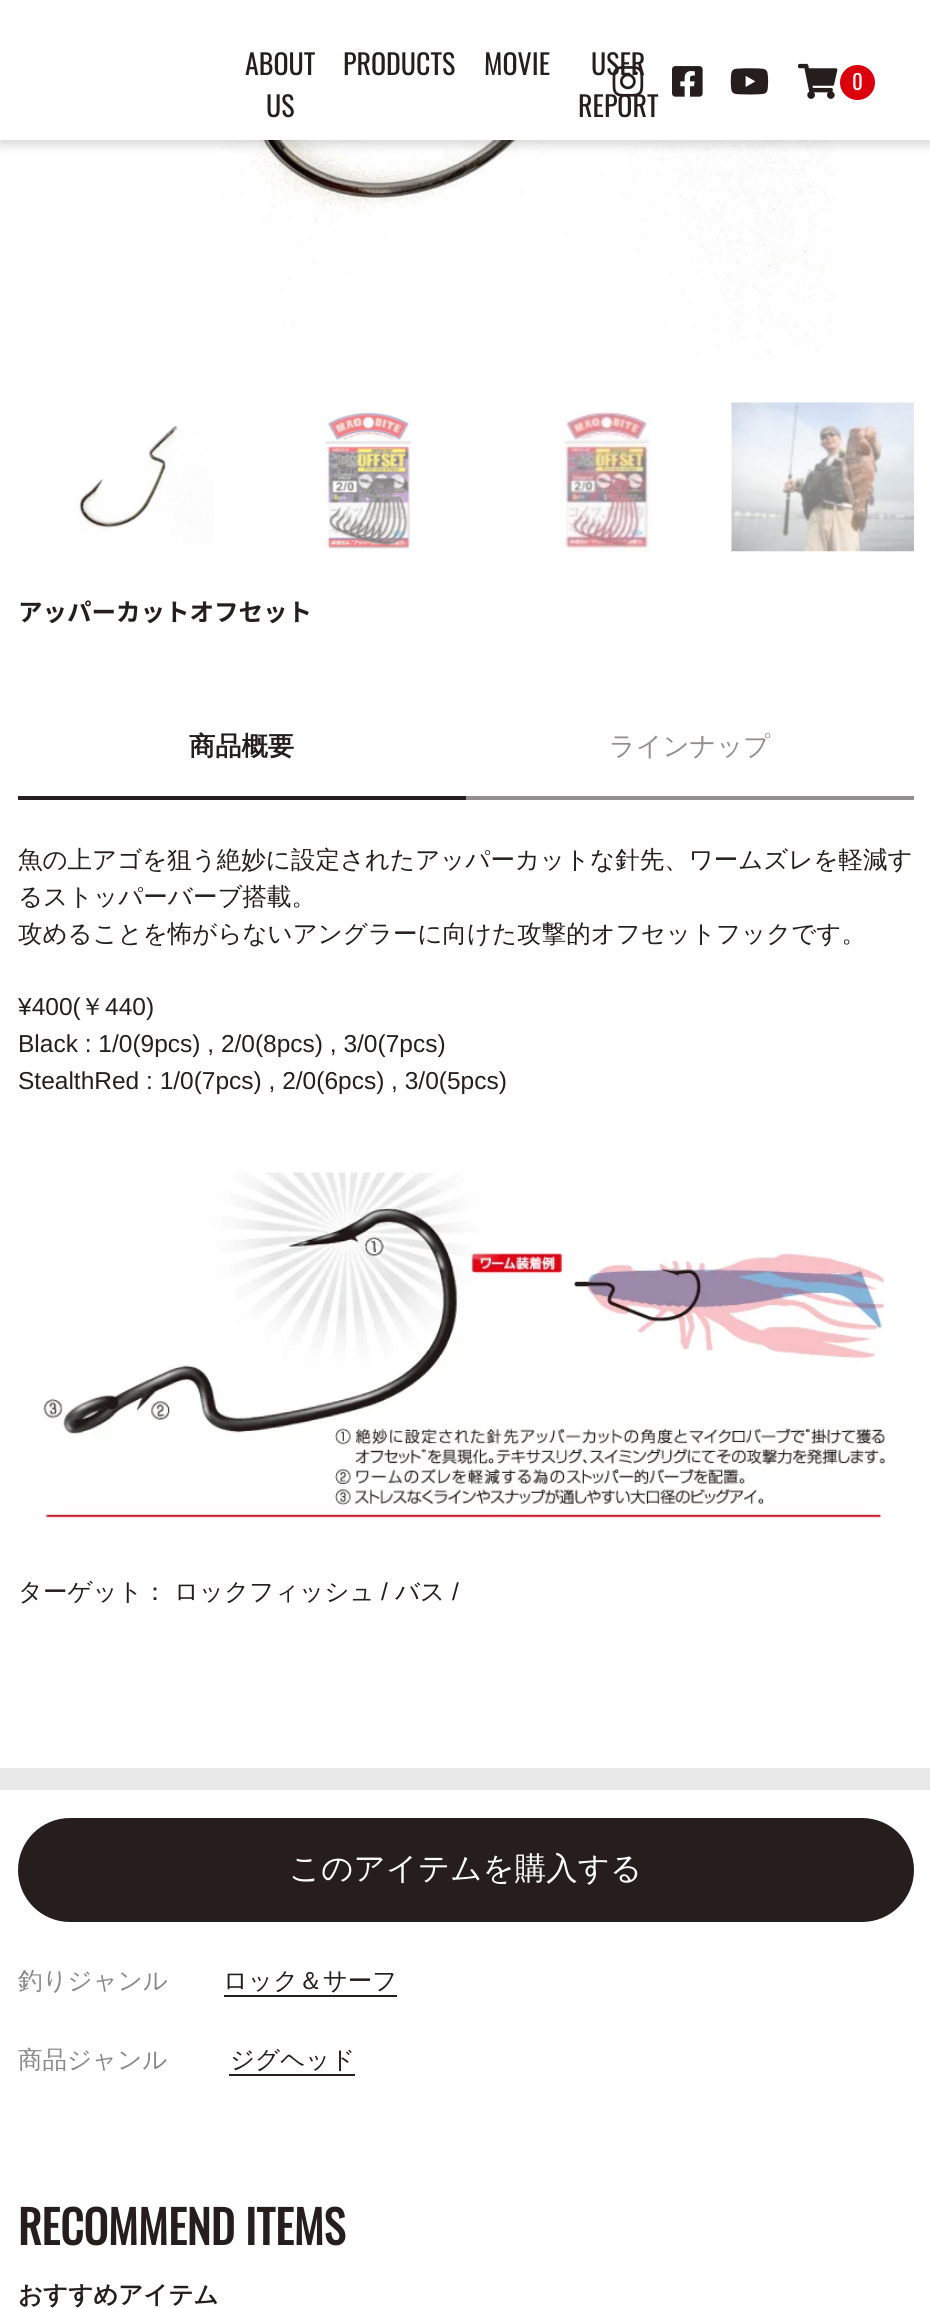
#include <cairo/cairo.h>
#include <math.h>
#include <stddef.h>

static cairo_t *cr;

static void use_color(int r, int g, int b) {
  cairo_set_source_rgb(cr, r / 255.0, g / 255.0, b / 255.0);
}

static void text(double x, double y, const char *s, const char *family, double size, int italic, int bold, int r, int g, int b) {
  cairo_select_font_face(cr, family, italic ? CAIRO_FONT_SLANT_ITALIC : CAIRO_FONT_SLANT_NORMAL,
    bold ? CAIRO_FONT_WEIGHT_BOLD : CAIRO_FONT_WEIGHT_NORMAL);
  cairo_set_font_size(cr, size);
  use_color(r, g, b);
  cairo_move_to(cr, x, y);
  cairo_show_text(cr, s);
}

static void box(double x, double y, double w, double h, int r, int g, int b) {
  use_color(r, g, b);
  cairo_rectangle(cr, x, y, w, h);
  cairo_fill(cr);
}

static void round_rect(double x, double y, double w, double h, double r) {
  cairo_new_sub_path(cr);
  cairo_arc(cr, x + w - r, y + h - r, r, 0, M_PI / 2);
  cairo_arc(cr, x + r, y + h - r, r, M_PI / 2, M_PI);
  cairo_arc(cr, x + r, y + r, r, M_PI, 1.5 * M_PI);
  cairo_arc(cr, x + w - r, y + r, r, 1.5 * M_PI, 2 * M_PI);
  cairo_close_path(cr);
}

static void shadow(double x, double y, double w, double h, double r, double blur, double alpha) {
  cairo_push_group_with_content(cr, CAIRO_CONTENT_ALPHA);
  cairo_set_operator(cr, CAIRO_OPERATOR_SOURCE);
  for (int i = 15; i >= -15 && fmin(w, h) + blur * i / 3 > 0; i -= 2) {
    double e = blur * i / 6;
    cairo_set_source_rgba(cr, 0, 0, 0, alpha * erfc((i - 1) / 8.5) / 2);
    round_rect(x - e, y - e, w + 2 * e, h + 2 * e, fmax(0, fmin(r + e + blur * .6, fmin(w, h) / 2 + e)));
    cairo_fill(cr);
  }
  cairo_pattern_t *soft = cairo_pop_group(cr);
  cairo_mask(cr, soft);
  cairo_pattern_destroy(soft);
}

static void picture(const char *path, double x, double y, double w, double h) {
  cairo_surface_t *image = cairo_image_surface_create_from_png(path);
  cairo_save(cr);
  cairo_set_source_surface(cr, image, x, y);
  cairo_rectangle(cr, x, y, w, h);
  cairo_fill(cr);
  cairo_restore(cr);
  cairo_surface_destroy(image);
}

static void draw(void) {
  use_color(255, 255, 255);
  cairo_paint(cr);
  picture("img_05.png", 201, 140, 635, 219);
  use_color(0, 0, 0);
  shadow(0, 5, 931, 140, 0, 5, 0.16);
  box(0, 0, 930, 140, 255, 255, 255);
  picture("img_02.png", 672, 66, 31, 31);
  picture("img_03.png", 730, 68, 39, 27);
  picture("img_04.png", 798, 63, 40, 36);
  use_color(220, 0, 12);
  cairo_arc(cr, 857.5, 82.5, 17.5, 0, 2 * M_PI);
  cairo_fill(cr);
  picture("img_06.png", 75, 426, 139, 118);
  picture("img_07.png", 325, 412, 87, 137);
  picture("img_08.png", 560, 411, 91, 141);
  picture("img_09.png", 731, 402, 183, 150);
  box(18, 796, 448, 4, 37, 30, 28);
  box(466, 796, 448, 4, 146, 143, 142);
  picture("img_10.png", 42, 1172, 843, 347);
  box(0, 1768, 930, 22, 232, 232, 232);
  use_color(37, 30, 28);
  round_rect(18, 1818, 896, 104, 52);
  cairo_fill(cr);
  box(224, 1995, 173, 2, 37, 30, 28);
  box(229, 2074, 126, 2, 37, 30, 28);
  text(245, 75, "ABOUT", "Oswald", 28, 0, 0, 37, 30, 28);
  text(266, 117, "US", "Oswald", 28, 0, 0, 37, 30, 28);
  text(343, 75, "PRODUCTS", "Oswald", 28, 0, 0, 37, 30, 28);
  text(484, 75, "MOVIE", "Oswald", 28, 0, 0, 37, 30, 28);
  text(591, 75, "USER", "Oswald", 28, 0, 0, 37, 30, 28);
  text(578, 117, "REPORT", "Oswald", 28, 0, 0, 37, 30, 28);
  picture("img_01.png", 612, 66, 32, 31);
  text(852, 90, "0", "Oswald", 21, 0, 0, 255, 255, 255);
  text(18, 621, "アッパーカットオフセット", "Noto Sans JP", 24.5, 0, 1, 37, 30, 28);
  text(189, 755, "商品概要", "WenQuanYi Zen Hei", 26.25, 0, 1, 37, 30, 28);
  text(609, 755, "ラインナップ", "WenQuanYi Zen Hei Medium", 26.25, 0, 0, 146, 143, 142);
  text(18, 868, "魚の上アゴを狙う絶妙に設定されたアッパーカットな針先、ワームズレを軽減す", "WenQuanYi Zen Hei Medium", 24.5, 0, 0, 37, 30, 28);
  text(18, 905, "るストッパーバーブ搭載。", "WenQuanYi Zen Hei Medium", 24.5, 0, 0, 37, 30, 28);
  text(18, 942, "攻めることを怖がらないアングラーに向けた攻撃的オフセットフックです。", "WenQuanYi Zen Hei Medium", 24.5, 0, 0, 37, 30, 28);
  text(18, 1015, "¥400(", "Liberation Sans", 24.5, 0, 0, 37, 30, 28);
  text(80, 1015, "￥", "WenQuanYi Zen Hei Medium", 24.5, 0, 0, 37, 30, 28);
  text(105, 1015, "440)", "Liberation Sans", 24.5, 0, 0, 37, 30, 28);
  text(18, 1052, "Black : 1/0(9pcs) , 2/0(8pcs) , 3/0(7pcs)", "Liberation Sans", 24.5, 0, 0, 37, 30, 28);
  text(18, 1089, "StealthRed : 1/0(7pcs) , 2/0(6pcs) , 3/0(5pcs)", "Liberation Sans", 24.5, 0, 0, 37, 30, 28);
  text(18, 1600, "ターゲット：", "WenQuanYi Zen Hei Medium", 24.5, 0, 0, 37, 30, 28);
  text(174, 1600, "ロックフィッシュ", "WenQuanYi Zen Hei Medium", 24.5, 0, 0, 37, 30, 28);
  text(381, 1600, "/", "Liberation Sans", 24.5, 0, 0, 37, 30, 28);
  text(395, 1600, "バス", "WenQuanYi Zen Hei Medium", 24.5, 0, 0, 37, 30, 28);
  text(452, 1600, "/", "Liberation Sans", 24.5, 0, 0, 37, 30, 28);
  text(289, 1879, "このアイテムを購入する", "WenQuanYi Zen Hei Medium", 31.5, 0, 0, 255, 255, 255);
  text(18, 1989, "釣りジャンル", "WenQuanYi Zen Hei Medium", 24.5, 0, 0, 136, 136, 136);
  text(223, 1989, "ロック＆サーフ", "WenQuanYi Zen Hei Medium", 24.5, 0, 0, 37, 30, 28);
  text(18, 2068, "商品ジャンル", "WenQuanYi Zen Hei Medium", 24.5, 0, 0, 136, 136, 136);
  text(230, 2068, "ジグヘッド", "WenQuanYi Zen Hei Medium", 24.5, 0, 0, 37, 30, 28);
  text(18, 2245, "RECOMMEND ITEMS", "Oswald", 45.5, 0, 1, 37, 30, 28);
  text(18, 2303, "おすすめアイテム", "WenQuanYi Zen Hei", 24.5, 0, 1, 37, 30, 28);
}

int main(void) {
  cairo_surface_t *surface = cairo_image_surface_create(CAIRO_FORMAT_RGB24, 930, 2308);
  cr = cairo_create(surface);
  cairo_font_options_t *options = cairo_font_options_create();
  cairo_font_options_set_hint_metrics(options, CAIRO_HINT_METRICS_OFF);
  cairo_font_options_set_hint_style(options, CAIRO_HINT_STYLE_NONE);
  cairo_set_font_options(cr, options);
  cairo_set_miter_limit(cr, 4);
  draw();
  cairo_surface_write_to_png(surface, "out.png");
  cairo_font_options_destroy(options);
  cairo_destroy(cr);
  cairo_surface_destroy(surface);
  return 0;
}
